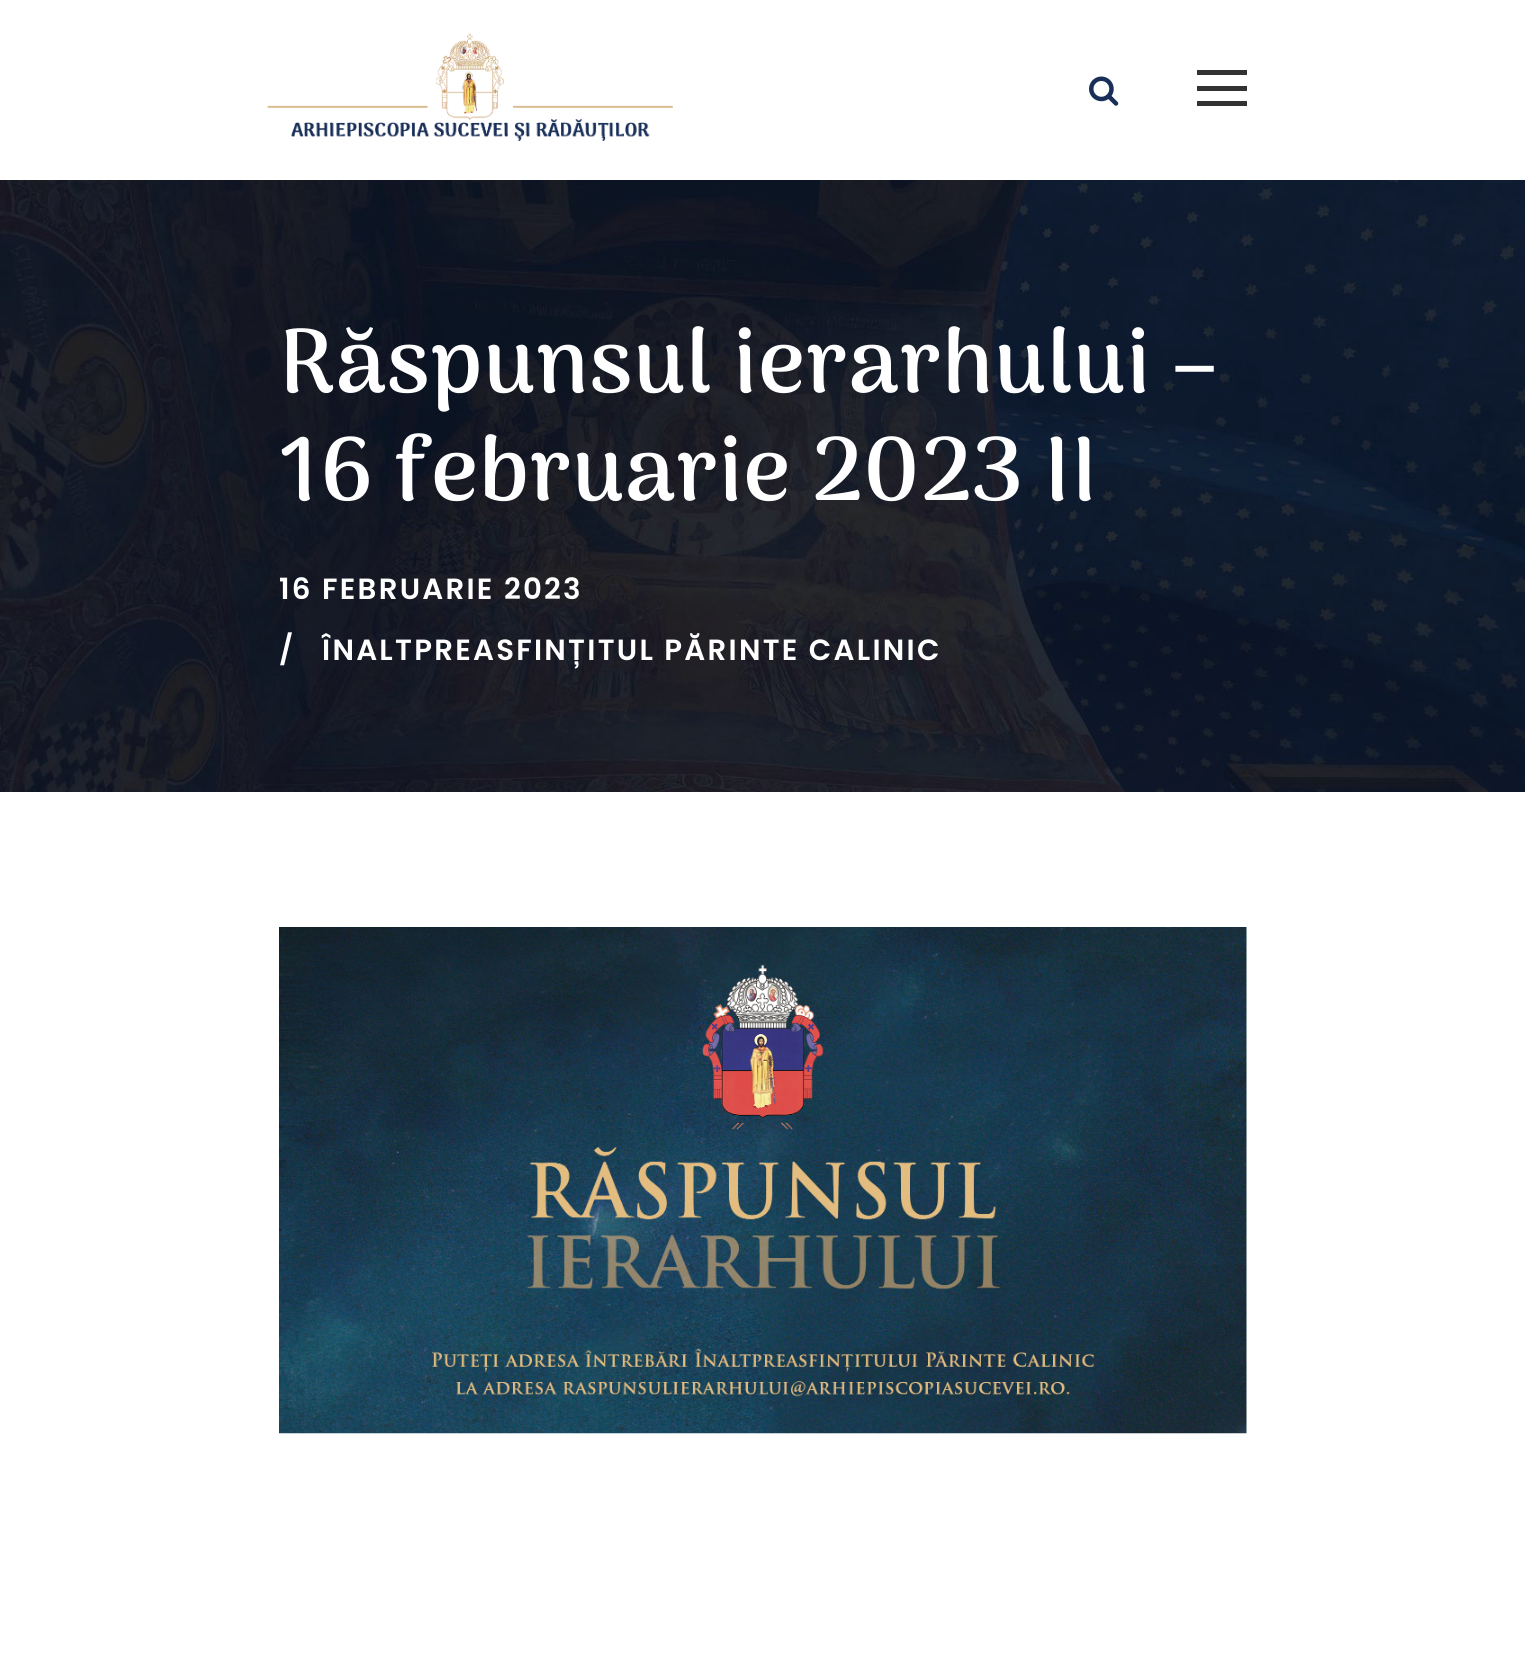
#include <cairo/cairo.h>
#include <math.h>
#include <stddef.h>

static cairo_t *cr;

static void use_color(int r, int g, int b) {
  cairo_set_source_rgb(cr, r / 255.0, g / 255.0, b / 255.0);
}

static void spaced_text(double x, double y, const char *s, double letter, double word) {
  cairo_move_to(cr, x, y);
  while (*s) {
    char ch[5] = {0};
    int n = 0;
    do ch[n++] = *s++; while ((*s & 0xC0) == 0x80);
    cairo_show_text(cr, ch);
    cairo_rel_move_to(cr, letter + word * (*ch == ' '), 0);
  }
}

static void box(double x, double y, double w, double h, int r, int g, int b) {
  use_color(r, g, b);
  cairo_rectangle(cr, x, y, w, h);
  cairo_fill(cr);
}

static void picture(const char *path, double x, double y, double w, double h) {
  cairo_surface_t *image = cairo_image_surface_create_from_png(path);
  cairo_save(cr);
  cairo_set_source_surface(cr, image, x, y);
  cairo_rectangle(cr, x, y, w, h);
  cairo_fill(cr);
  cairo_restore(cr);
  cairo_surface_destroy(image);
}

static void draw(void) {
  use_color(255, 255, 255);
  cairo_paint(cr);
  picture("img_01.png", 267, 33, 406, 108);
  picture("img_02.png", 1089, 76, 30, 30);
  box(1197, 70, 50, 5, 51, 51, 51);
  box(1197, 86, 50, 5, 51, 51, 51);
  box(1197, 101, 50, 5, 51, 51, 51);
  picture("img_03.png", 0, 180, 1525, 612);
  picture("img_04.png", 279, 927, 968, 507);
  cairo_select_font_face(cr, "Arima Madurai", CAIRO_FONT_SLANT_NORMAL, CAIRO_FONT_WEIGHT_BOLD);
  cairo_set_font_size(cr, 90);
  use_color(255, 255, 255);
  spaced_text(279, 392, "Răspunsul ierarhului –", 1.1, 0);
  spaced_text(279, 500, "16 februarie 2023 II", 1.1, 0);
  cairo_select_font_face(cr, "Poppins SemiBold", CAIRO_FONT_SLANT_NORMAL, CAIRO_FONT_WEIGHT_NORMAL);
  cairo_set_font_size(cr, 29.25);
  spaced_text(279, 599, "16 FEBRUARIE 2023", 2.25, 0);
  spaced_text(279, 660, "/", 2.25, 0);
  spaced_text(322, 660, "ÎNALTPREASFINȚITUL PĂRINTE CALINIC", 2.25, 0);
}

int main(void) {
  cairo_surface_t *surface = cairo_image_surface_create(CAIRO_FORMAT_RGB24, 1525, 1678);
  cr = cairo_create(surface);
  cairo_font_options_t *options = cairo_font_options_create();
  cairo_font_options_set_hint_metrics(options, CAIRO_HINT_METRICS_OFF);
  cairo_font_options_set_hint_style(options, CAIRO_HINT_STYLE_NONE);
  cairo_set_font_options(cr, options);
  cairo_set_miter_limit(cr, 4);
  draw();
  cairo_surface_write_to_png(surface, "out.png");
  cairo_font_options_destroy(options);
  cairo_destroy(cr);
  cairo_surface_destroy(surface);
  return 0;
}
